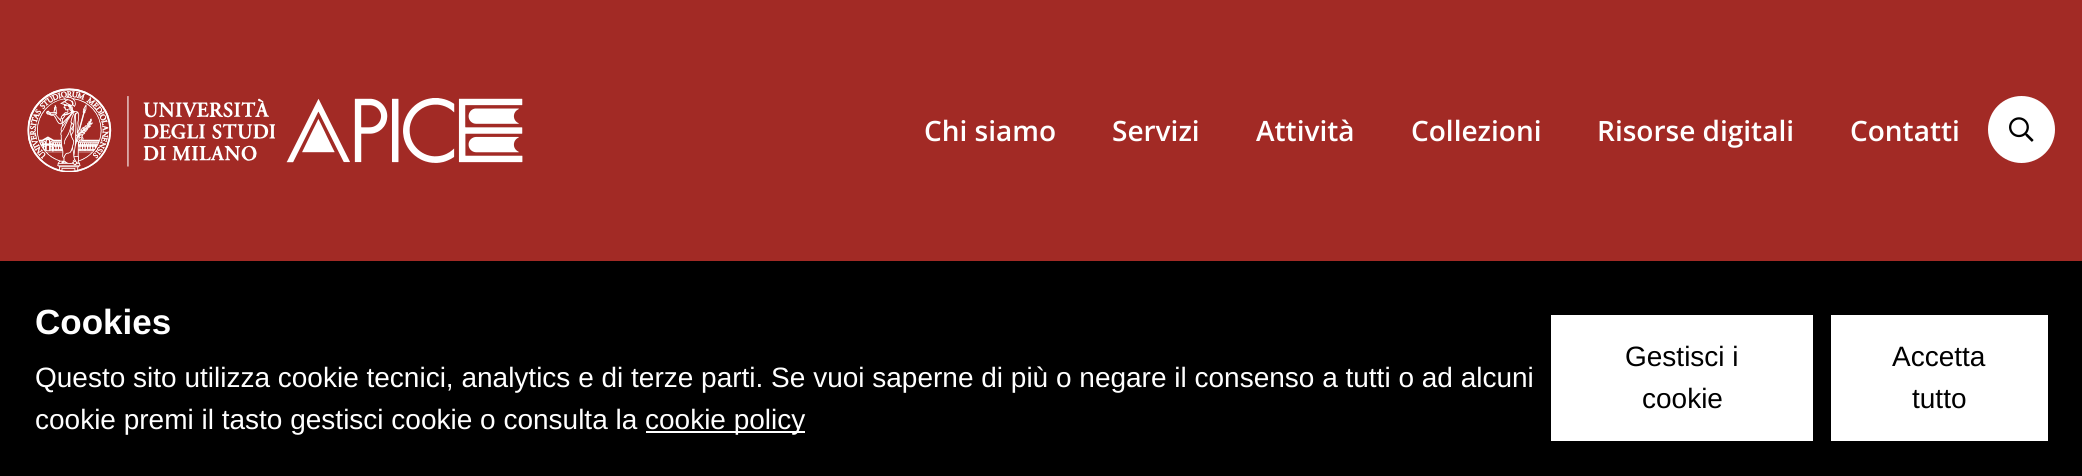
#include <cairo/cairo.h>
#include <math.h>
#include <stddef.h>

static cairo_t *cr;

static void use_color(int r, int g, int b) {
  cairo_set_source_rgb(cr, r / 255.0, g / 255.0, b / 255.0);
}

static void text(double x, double y, const char *s, const char *family, double size, int italic, int bold, int r, int g, int b) {
  cairo_select_font_face(cr, family, italic ? CAIRO_FONT_SLANT_ITALIC : CAIRO_FONT_SLANT_NORMAL,
    bold ? CAIRO_FONT_WEIGHT_BOLD : CAIRO_FONT_WEIGHT_NORMAL);
  cairo_set_font_size(cr, size);
  use_color(r, g, b);
  cairo_move_to(cr, x, y);
  cairo_show_text(cr, s);
}

static void box(double x, double y, double w, double h, int r, int g, int b) {
  use_color(r, g, b);
  cairo_rectangle(cr, x, y, w, h);
  cairo_fill(cr);
}

static void picture(const char *path, double x, double y, double w, double h) {
  cairo_surface_t *image = cairo_image_surface_create_from_png(path);
  cairo_save(cr);
  cairo_set_source_surface(cr, image, x, y);
  cairo_rectangle(cr, x, y, w, h);
  cairo_fill(cr);
  cairo_restore(cr);
  cairo_surface_destroy(image);
}

static void draw(void) {
  use_color(162, 42, 37);
  cairo_paint(cr);
  picture("img_01.png", 27, 88, 248, 84);
  picture("img_02.png", 286, 98, 237, 65);
  use_color(255, 255, 255);
  cairo_arc(cr, 2021.5, 129.5, 33.5, 0, 2 * M_PI);
  cairo_fill(cr);
  picture("img_03.png", 2009, 117, 25, 25);
  box(0, 261, 2082, 215, 0, 0, 0);
  box(646, 431, 159, 2, 255, 255, 255);
  box(1551, 315, 262, 126, 255, 255, 255);
  box(1831, 315, 217, 126, 255, 255, 255);
  text(924, 141, "Chi siamo", "Open Sans SemiBold", 28, 0, 0, 255, 255, 255);
  text(1112, 141, "Servizi", "Open Sans SemiBold", 28, 0, 0, 255, 255, 255);
  text(1256, 141, "Attività", "Open Sans SemiBold", 28, 0, 0, 255, 255, 255);
  text(1411, 141, "Collezioni", "Open Sans SemiBold", 28, 0, 0, 255, 255, 255);
  text(1597, 141, "Risorse digitali", "Open Sans SemiBold", 28, 0, 0, 255, 255, 255);
  text(1850, 141, "Contatti", "Open Sans SemiBold", 28, 0, 0, 255, 255, 255);
  text(35, 334, "Cookies", "Liberation Sans", 35, 0, 1, 255, 255, 255);
  text(35, 387, "Questo sito utilizza cookie tecnici, analytics e di terze parti. Se vuoi saperne di più o negare il consenso a tutti o ad alcuni", "Liberation Sans", 28, 0, 0, 255, 255, 255);
  text(35, 429, "cookie premi il tasto gestisci cookie o consulta la", "Liberation Sans", 28, 0, 0, 255, 255, 255);
  text(645, 429, "cookie policy", "Liberation Sans", 28, 0, 0, 255, 255, 255);
  text(1625, 366, "Gestisci i", "Liberation Sans", 28, 0, 0, 0, 0, 0);
  text(1642, 408, "cookie", "Liberation Sans", 28, 0, 0, 0, 0, 0);
  text(1892, 366, "Accetta", "Liberation Sans", 28, 0, 0, 0, 0, 0);
  text(1912, 408, "tutto", "Liberation Sans", 28, 0, 0, 0, 0, 0);
}

int main(void) {
  cairo_surface_t *surface = cairo_image_surface_create(CAIRO_FORMAT_RGB24, 2082, 476);
  cr = cairo_create(surface);
  cairo_font_options_t *options = cairo_font_options_create();
  cairo_font_options_set_hint_metrics(options, CAIRO_HINT_METRICS_OFF);
  cairo_font_options_set_hint_style(options, CAIRO_HINT_STYLE_NONE);
  cairo_set_font_options(cr, options);
  cairo_set_miter_limit(cr, 4);
  draw();
  cairo_surface_write_to_png(surface, "out.png");
  cairo_font_options_destroy(options);
  cairo_destroy(cr);
  cairo_surface_destroy(surface);
  return 0;
}
